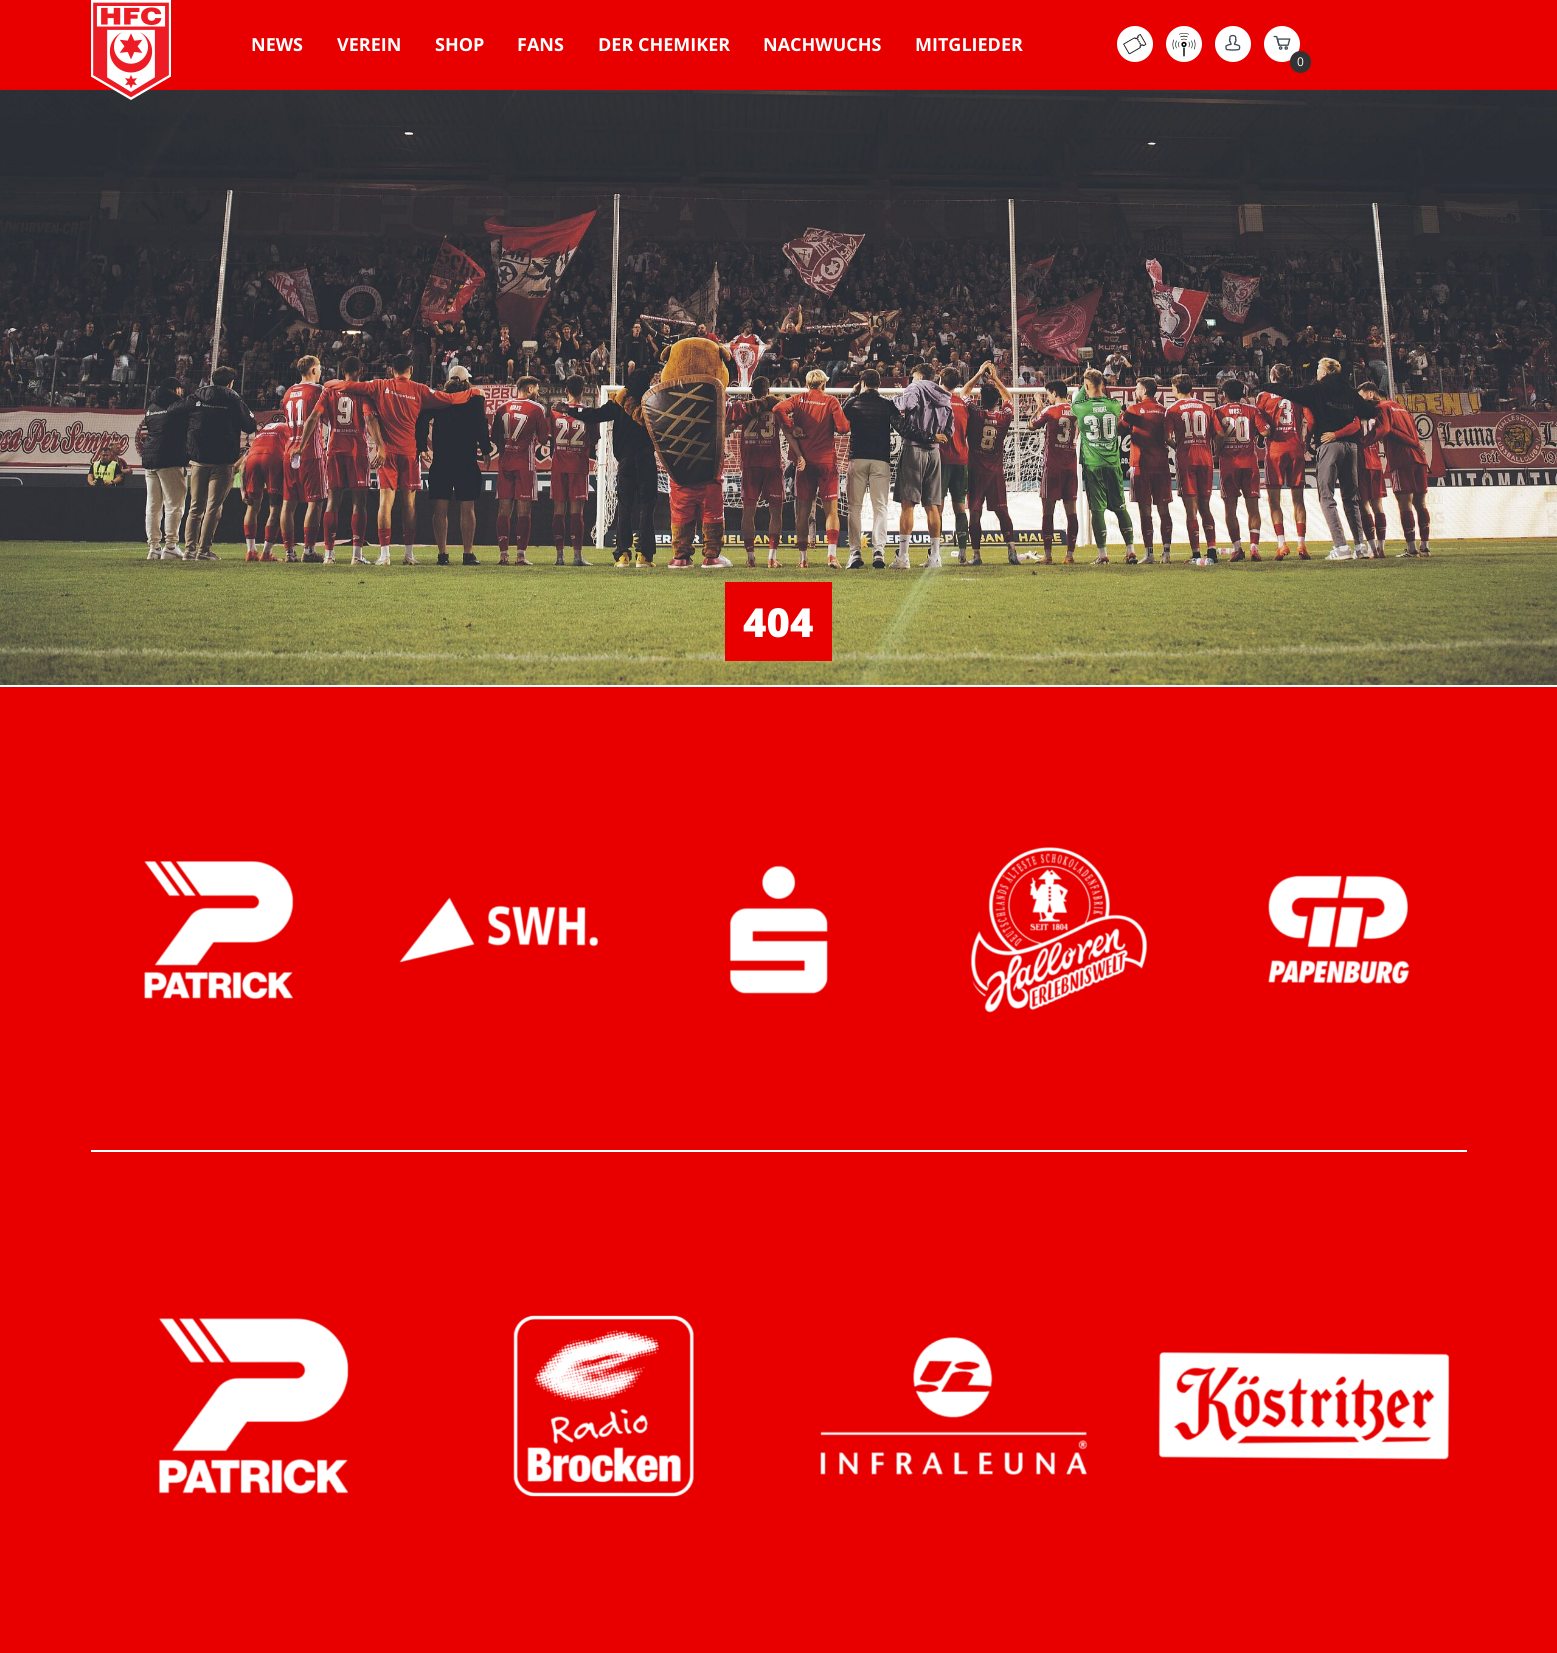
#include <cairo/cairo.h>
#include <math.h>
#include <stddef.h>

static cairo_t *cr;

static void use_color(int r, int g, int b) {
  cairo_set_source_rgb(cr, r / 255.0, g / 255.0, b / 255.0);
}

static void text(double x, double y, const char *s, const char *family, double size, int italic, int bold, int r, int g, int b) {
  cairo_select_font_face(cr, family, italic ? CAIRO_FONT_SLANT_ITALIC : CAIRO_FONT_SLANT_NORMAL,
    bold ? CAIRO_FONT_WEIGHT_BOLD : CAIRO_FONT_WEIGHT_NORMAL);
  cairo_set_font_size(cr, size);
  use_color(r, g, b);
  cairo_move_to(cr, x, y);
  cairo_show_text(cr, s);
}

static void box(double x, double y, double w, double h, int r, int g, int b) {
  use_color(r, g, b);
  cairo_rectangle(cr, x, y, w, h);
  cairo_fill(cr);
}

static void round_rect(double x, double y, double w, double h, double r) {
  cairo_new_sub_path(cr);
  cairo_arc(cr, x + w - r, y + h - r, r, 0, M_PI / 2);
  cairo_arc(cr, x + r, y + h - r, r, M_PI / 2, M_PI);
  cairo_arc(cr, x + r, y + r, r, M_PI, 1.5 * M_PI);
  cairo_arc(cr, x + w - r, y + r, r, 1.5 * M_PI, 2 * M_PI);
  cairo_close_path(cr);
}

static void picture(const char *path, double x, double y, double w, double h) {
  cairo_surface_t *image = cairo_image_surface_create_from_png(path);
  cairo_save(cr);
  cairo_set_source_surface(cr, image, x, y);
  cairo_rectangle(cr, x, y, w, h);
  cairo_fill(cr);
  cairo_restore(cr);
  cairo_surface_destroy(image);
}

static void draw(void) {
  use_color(255, 255, 255);
  cairo_paint(cr);
  box(0, 0, 1557, 90, 232, 0, 0);
  picture("img_06.png", 0, 90, 1557, 595);
  picture("img_01.png", 91, 0, 80, 100);
  use_color(255, 255, 255);
  cairo_arc(cr, 1135, 44, 18, 0, 2 * M_PI);
  cairo_fill(cr);
  picture("img_02.png", 1123, 34, 24, 21);
  cairo_arc(cr, 1184, 44, 18, 0, 2 * M_PI);
  cairo_fill(cr);
  picture("img_03.png", 1172, 33, 24, 24);
  cairo_arc(cr, 1233, 44, 18, 0, 2 * M_PI);
  cairo_fill(cr);
  picture("img_04.png", 1225, 34, 16, 17);
  cairo_arc(cr, 1282, 44, 18, 0, 2 * M_PI);
  cairo_fill(cr);
  picture("img_05.png", 1273, 35, 18, 15);
  use_color(51, 51, 51);
  round_rect(1290, 51, 21, 22, 10.5);
  cairo_fill(cr);
  box(725, 582, 107, 79, 232, 0, 0);
  box(0, 687, 1557, 966, 232, 0, 0);
  picture("img_07.png", 144, 861, 150, 138);
  picture("img_08.png", 399, 897, 200, 66);
  picture("img_09.png", 729, 865, 99, 129);
  picture("img_10.png", 970, 847, 178, 166);
  picture("img_11.png", 1268, 875, 142, 109);
  box(91, 1150, 1376, 2, 255, 255, 255);
  picture("img_12.png", 158, 1318, 191, 176);
  picture("img_13.png", 513, 1315, 181, 182);
  picture("img_14.png", 820, 1337, 268, 138);
  picture("img_15.png", 1158, 1352, 292, 108);
  text(251, 51, "NEWS", "Open Sans", 18, 0, 1, 255, 255, 255);
  text(337, 51, "VEREIN", "Open Sans", 18, 0, 1, 255, 255, 255);
  text(435, 51, "SHOP", "Open Sans", 18, 0, 1, 255, 255, 255);
  text(517, 51, "FANS", "Open Sans", 18, 0, 1, 255, 255, 255);
  text(598, 51, "DER CHEMIKER", "Open Sans", 18, 0, 1, 255, 255, 255);
  text(763, 51, "NACHWUCHS", "Open Sans", 18, 0, 1, 255, 255, 255);
  text(915, 51, "MITGLIEDER", "Open Sans", 18, 0, 1, 255, 255, 255);
  text(1297, 66, "0", "Open Sans", 12, 0, 0, 255, 255, 255);
  text(743, 637, "404", "Open Sans ExtraBold", 40, 0, 0, 255, 255, 255);
}

int main(void) {
  cairo_surface_t *surface = cairo_image_surface_create(CAIRO_FORMAT_RGB24, 1557, 1653);
  cr = cairo_create(surface);
  cairo_font_options_t *options = cairo_font_options_create();
  cairo_font_options_set_hint_metrics(options, CAIRO_HINT_METRICS_OFF);
  cairo_font_options_set_hint_style(options, CAIRO_HINT_STYLE_NONE);
  cairo_set_font_options(cr, options);
  cairo_set_miter_limit(cr, 4);
  draw();
  cairo_surface_write_to_png(surface, "out.png");
  cairo_font_options_destroy(options);
  cairo_destroy(cr);
  cairo_surface_destroy(surface);
  return 0;
}
